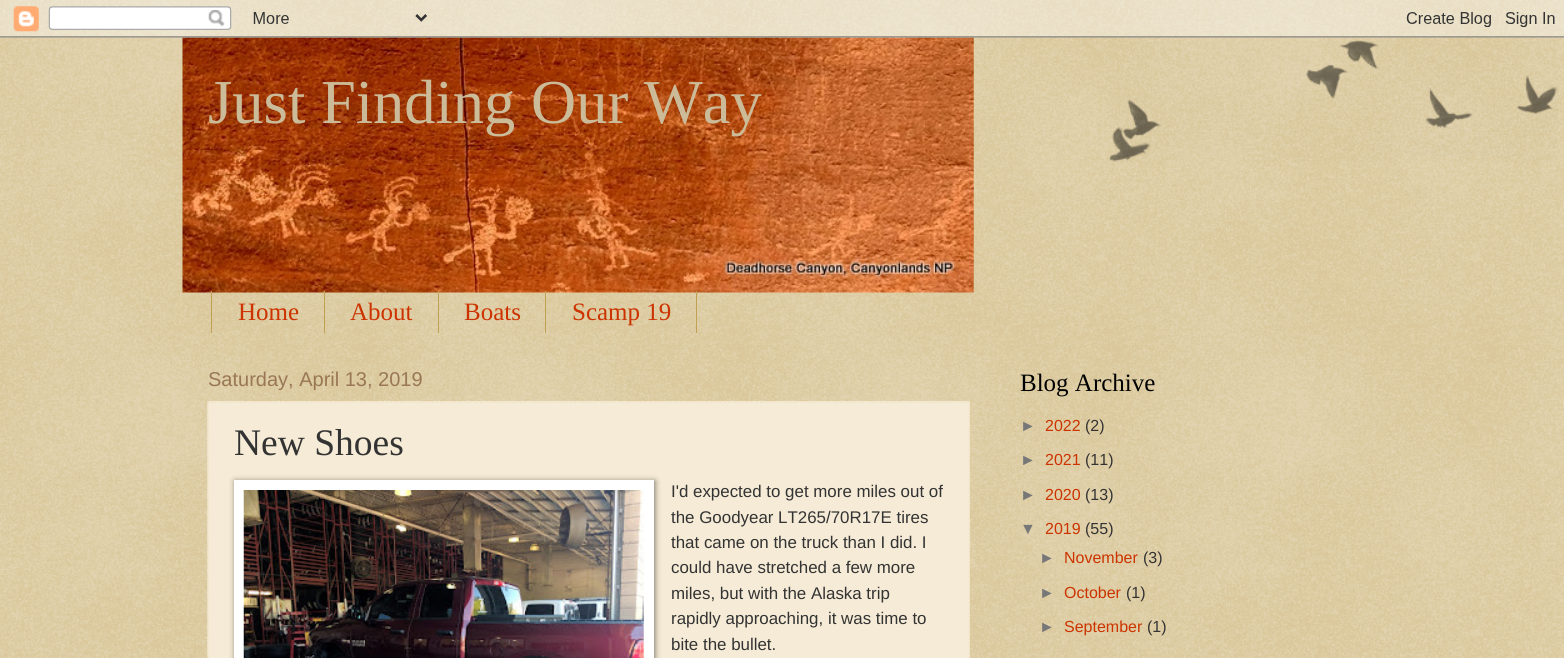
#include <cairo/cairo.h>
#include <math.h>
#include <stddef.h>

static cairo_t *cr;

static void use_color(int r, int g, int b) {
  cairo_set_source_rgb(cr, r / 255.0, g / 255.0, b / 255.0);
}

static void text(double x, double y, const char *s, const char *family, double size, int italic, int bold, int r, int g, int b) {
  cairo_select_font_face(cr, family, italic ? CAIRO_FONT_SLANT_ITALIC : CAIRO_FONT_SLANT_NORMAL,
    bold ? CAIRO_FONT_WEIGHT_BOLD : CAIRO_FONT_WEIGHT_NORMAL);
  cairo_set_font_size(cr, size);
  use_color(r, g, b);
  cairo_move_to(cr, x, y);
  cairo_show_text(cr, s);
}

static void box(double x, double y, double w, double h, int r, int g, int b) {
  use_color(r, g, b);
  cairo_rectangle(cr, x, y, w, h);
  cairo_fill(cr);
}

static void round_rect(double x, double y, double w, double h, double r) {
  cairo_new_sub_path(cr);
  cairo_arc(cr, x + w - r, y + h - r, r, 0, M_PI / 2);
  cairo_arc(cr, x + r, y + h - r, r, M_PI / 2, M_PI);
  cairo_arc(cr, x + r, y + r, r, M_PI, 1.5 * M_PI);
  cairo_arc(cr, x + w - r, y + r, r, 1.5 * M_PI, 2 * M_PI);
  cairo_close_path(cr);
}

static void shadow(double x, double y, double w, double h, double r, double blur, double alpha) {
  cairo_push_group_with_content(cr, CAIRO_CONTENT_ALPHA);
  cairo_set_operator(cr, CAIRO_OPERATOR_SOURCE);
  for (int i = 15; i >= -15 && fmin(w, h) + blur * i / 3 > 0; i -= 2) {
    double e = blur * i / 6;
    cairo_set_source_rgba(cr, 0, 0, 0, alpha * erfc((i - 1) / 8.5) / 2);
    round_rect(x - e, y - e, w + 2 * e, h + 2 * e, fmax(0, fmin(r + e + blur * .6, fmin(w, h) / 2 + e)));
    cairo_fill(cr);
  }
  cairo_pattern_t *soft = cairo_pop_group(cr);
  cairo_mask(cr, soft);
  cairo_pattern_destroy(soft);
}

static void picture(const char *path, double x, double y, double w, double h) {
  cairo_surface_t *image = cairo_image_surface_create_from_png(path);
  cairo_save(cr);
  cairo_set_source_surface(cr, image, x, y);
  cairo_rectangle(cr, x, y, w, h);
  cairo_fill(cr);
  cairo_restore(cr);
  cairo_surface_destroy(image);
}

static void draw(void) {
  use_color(192, 161, 84);
  cairo_paint(cr);
  picture("img_01.png", 0, 0, 1564, 658);
  picture("img_03.png", 182, 37, 792, 256);
  picture("img_02.png", 0, 0, 1564, 38);
  box(324, 291, 1, 42, 192, 161, 84);
  box(211, 291, 1, 42, 192, 161, 84);
  box(438, 291, 1, 42, 192, 161, 84);
  box(545, 291, 1, 42, 192, 161, 84);
  box(696, 291, 1, 42, 192, 161, 84);
  box(208, 401, 762, 257, 238, 221, 187);
  cairo_set_source_rgba(cr, 1, 1, 1, 0.4);
  cairo_rectangle(cr, 207, 401, 763, 257);
  cairo_fill(cr);
  cairo_new_path(cr);
  cairo_move_to(cr, 207.5, 402);
  cairo_line_to(cr, 970, 402);
  use_color(238, 221, 187);
  cairo_set_line_width(cr, 1.2);
  cairo_set_dash(cr, (double[]){1.25, 1.25}, 2, 0);
  cairo_stroke(cr);
  cairo_new_path(cr);
  cairo_move_to(cr, 969.5, 401);
  cairo_line_to(cr, 969.5, 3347.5);
  cairo_stroke(cr);
  cairo_new_path(cr);
  cairo_move_to(cr, 208, 401);
  cairo_line_to(cr, 208, 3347.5);
  cairo_stroke(cr);
  use_color(0, 0, 0);
  shadow(235, 481, 420, 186, 0, 3, 0.5);
  box(234, 480, 420, 178, 255, 255, 255);
  picture("img_04.png", 243, 490, 401, 168);
  picture("img_05.png", 1109, 40, 449, 122);
  text(208, 123, "Just Finding Our Way", "Liberation Serif", 62.5, 0, 0, 204, 187, 153);
  text(238, 320, "Home", "Liberation Serif", 25, 0, 0, 204, 51, 0);
  text(350, 320, "About", "Liberation Serif", 25, 0, 0, 204, 51, 0);
  text(464, 320, "Boats", "Liberation Serif", 25, 0, 0, 204, 51, 0);
  text(572, 320, "Scamp 19", "Liberation Serif", 25, 0, 0, 204, 51, 0);
  text(208, 386, "Saturday, April 13, 2019", "Liberation Sans", 20, 0, 0, 153, 119, 85);
  text(234, 455, "New Shoes", "Liberation Serif", 37.5, 0, 0, 51, 51, 51);
  text(671, 497, "I'd expected to get more miles out of", "Liberation Sans", 16.9, 0, 0, 51, 51, 51);
  text(671, 523, "the Goodyear LT265/70R17E tires", "Liberation Sans", 16.9, 0, 0, 51, 51, 51);
  text(671, 548, "that came on the truck than I did. I", "Liberation Sans", 16.9, 0, 0, 51, 51, 51);
  text(671, 573, "could have stretched a few more", "Liberation Sans", 16.9, 0, 0, 51, 51, 51);
  text(671, 599, "miles, but with the Alaska trip", "Liberation Sans", 16.9, 0, 0, 51, 51, 51);
  text(671, 624, "rapidly approaching, it was time to", "Liberation Sans", 16.9, 0, 0, 51, 51, 51);
  text(671, 650, "bite the bullet.", "Liberation Sans", 16.9, 0, 0, 51, 51, 51);
  text(1020, 391, "Blog Archive", "Liberation Serif", 25, 0, 0, 0, 0, 0);
  text(1020, 431, "►", "Liberation Sans", 16, 0, 0, 119, 119, 119);
  text(1045, 431, "2022", "Liberation Sans", 16, 0, 0, 204, 51, 0);
  text(1085, 431, "(2)", "Liberation Sans", 16, 0, 0, 51, 51, 51);
  text(1020, 465, "►", "Liberation Sans", 16, 0, 0, 119, 119, 119);
  text(1045, 465, "2021", "Liberation Sans", 16, 0, 0, 204, 51, 0);
  text(1085, 465, "(11)", "Liberation Sans", 16, 0, 0, 51, 51, 51);
  text(1020, 500, "►", "Liberation Sans", 16, 0, 0, 119, 119, 119);
  text(1045, 500, "2020", "Liberation Sans", 16, 0, 0, 204, 51, 0);
  text(1085, 500, "(13)", "Liberation Sans", 16, 0, 0, 51, 51, 51);
  text(1020, 534, "▼", "Liberation Sans", 16, 0, 0, 119, 119, 119);
  text(1045, 534, "2019", "Liberation Sans", 16, 0, 0, 204, 51, 0);
  text(1085, 534, "(55)", "Liberation Sans", 16, 0, 0, 51, 51, 51);
  text(1039, 563, "►", "Liberation Sans", 16, 0, 0, 119, 119, 119);
  text(1064, 563, "November", "Liberation Sans", 16, 0, 0, 204, 51, 0);
  text(1143, 563, "(3)", "Liberation Sans", 16, 0, 0, 51, 51, 51);
  text(1039, 598, "►", "Liberation Sans", 16, 0, 0, 119, 119, 119);
  text(1064, 598, "October", "Liberation Sans", 16, 0, 0, 204, 51, 0);
  text(1126, 598, "(1)", "Liberation Sans", 16, 0, 0, 51, 51, 51);
  text(1039, 632, "►", "Liberation Sans", 16, 0, 0, 119, 119, 119);
  text(1064, 632, "September", "Liberation Sans", 16, 0, 0, 204, 51, 0);
  text(1147, 632, "(1)", "Liberation Sans", 16, 0, 0, 51, 51, 51);
}

int main(void) {
  cairo_surface_t *surface = cairo_image_surface_create(CAIRO_FORMAT_RGB24, 1564, 658);
  cr = cairo_create(surface);
  cairo_font_options_t *options = cairo_font_options_create();
  cairo_font_options_set_hint_metrics(options, CAIRO_HINT_METRICS_OFF);
  cairo_font_options_set_hint_style(options, CAIRO_HINT_STYLE_NONE);
  cairo_set_font_options(cr, options);
  cairo_set_miter_limit(cr, 4);
  draw();
  cairo_surface_write_to_png(surface, "out.png");
  cairo_font_options_destroy(options);
  cairo_destroy(cr);
  cairo_surface_destroy(surface);
  return 0;
}
